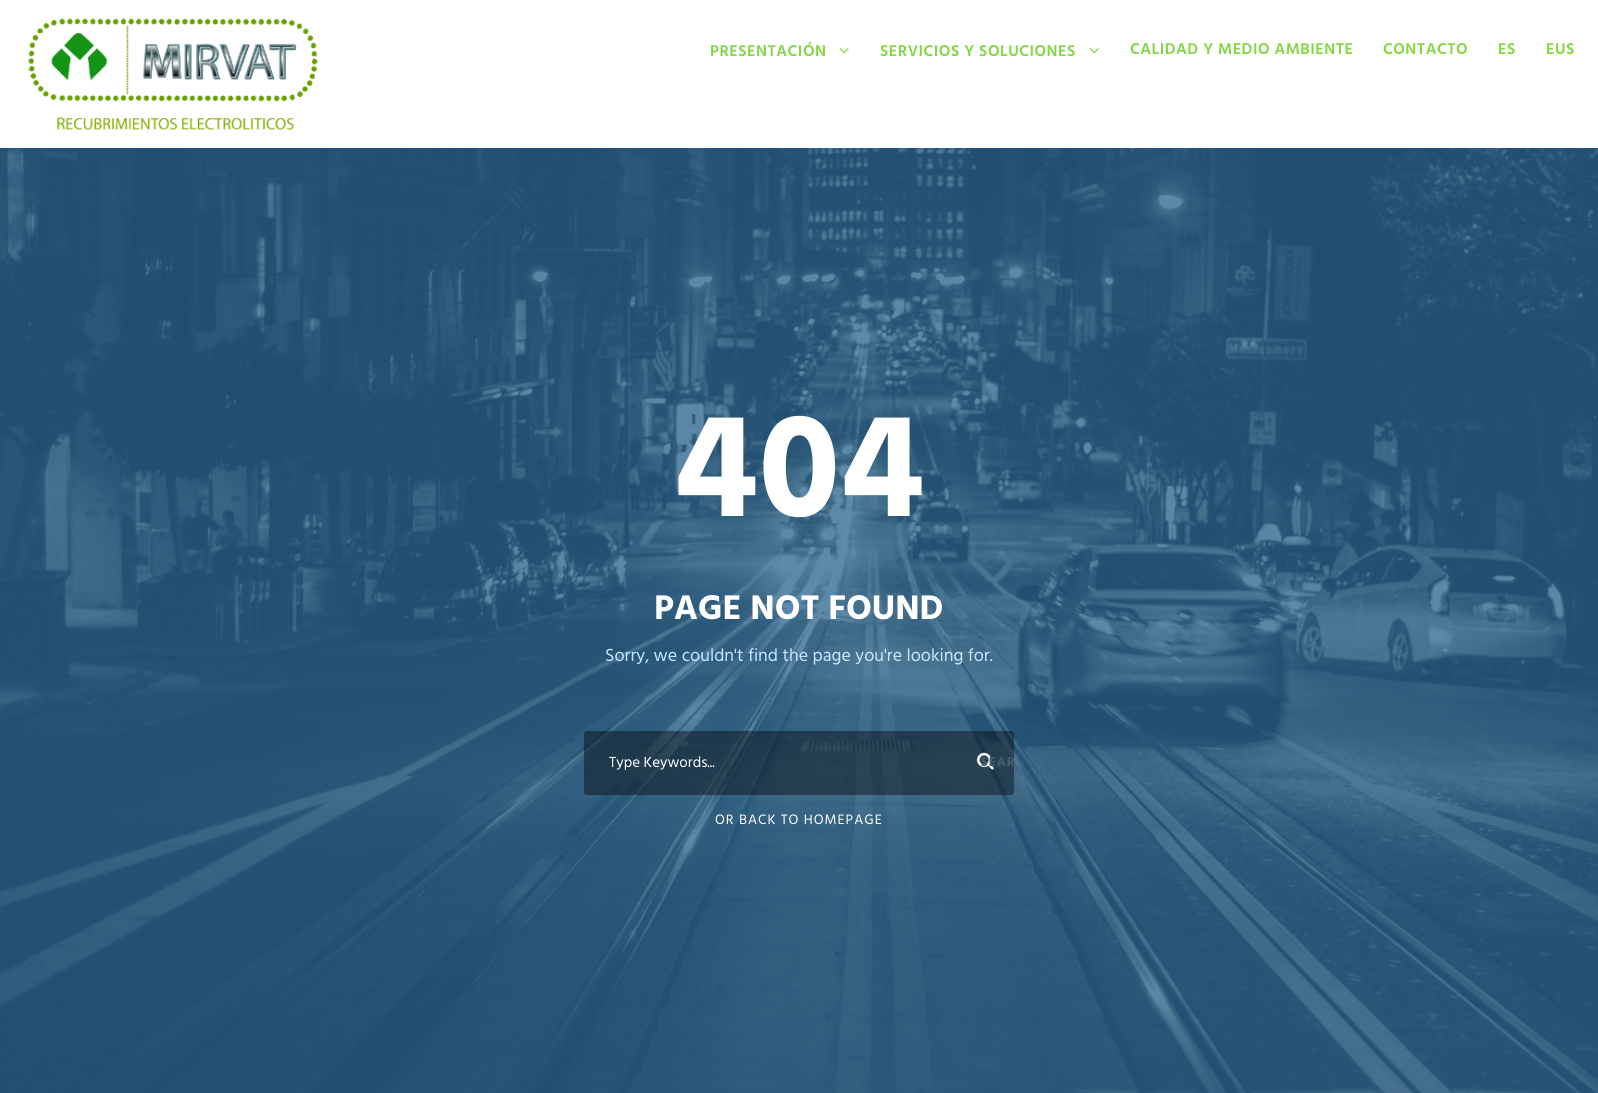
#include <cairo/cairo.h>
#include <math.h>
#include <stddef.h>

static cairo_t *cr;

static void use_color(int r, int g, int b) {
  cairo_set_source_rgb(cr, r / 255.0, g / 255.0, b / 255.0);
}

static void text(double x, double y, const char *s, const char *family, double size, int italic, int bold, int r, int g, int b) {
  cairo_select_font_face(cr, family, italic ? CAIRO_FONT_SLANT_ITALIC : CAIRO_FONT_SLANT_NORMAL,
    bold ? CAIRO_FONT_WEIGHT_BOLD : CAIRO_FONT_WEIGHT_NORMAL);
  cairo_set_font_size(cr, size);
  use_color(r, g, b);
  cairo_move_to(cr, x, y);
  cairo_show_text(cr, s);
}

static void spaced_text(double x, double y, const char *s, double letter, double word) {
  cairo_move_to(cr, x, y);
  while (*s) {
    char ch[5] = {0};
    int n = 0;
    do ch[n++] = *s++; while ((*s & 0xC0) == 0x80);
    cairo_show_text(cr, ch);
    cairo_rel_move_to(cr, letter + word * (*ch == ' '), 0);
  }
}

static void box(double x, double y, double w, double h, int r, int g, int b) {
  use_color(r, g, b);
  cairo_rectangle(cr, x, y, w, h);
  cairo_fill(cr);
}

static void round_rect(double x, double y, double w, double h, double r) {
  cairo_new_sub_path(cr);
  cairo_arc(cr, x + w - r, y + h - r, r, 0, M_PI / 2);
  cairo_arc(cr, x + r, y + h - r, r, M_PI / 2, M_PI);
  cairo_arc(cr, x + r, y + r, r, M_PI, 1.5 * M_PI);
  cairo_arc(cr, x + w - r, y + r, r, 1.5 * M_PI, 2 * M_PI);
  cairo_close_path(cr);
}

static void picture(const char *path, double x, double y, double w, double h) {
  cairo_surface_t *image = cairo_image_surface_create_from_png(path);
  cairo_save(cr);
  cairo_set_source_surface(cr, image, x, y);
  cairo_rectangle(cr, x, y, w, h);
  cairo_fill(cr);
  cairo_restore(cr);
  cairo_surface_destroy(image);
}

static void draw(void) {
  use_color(255, 255, 255);
  cairo_paint(cr);
  picture("img_01.png", 28, 18, 290, 113);
  picture("img_02.png", 839, 48, 10, 6);
  picture("img_02.png", 1089, 48, 10, 6);
  box(0, 148, 1598, 945, 35, 97, 142);
  picture("img_03.png", 0, 148, 1598, 945);
  cairo_set_source_rgba(cr, 0, 0, 0, 0.4);
  round_rect(584, 731, 430, 64, 3);
  cairo_fill(cr);
  picture("img_04.png", 977, 752, 17, 18);
  cairo_select_font_face(cr, "Hind SemiBold", CAIRO_FONT_SLANT_NORMAL, CAIRO_FONT_WEIGHT_NORMAL);
  cairo_set_font_size(cr, 16);
  use_color(129, 215, 66);
  spaced_text(710, 56, "PRESENTACIÓN", 0.5, 0);
  spaced_text(880, 56, "SERVICIOS Y SOLUCIONES", 0.5, 0);
  spaced_text(1130, 54, "CALIDAD Y MEDIO AMBIENTE", 0.5, 0);
  spaced_text(1383, 54, "CONTACTO", 0.5, 0);
  spaced_text(1498, 54, "ES", 0.5, 0);
  spaced_text(1546, 54, "EUS", 0.5, 0);
  text(674, 516, "404", "Hind", 150, 0, 1, 255, 255, 255);
  text(654, 619, "PAGE NOT FOUND", "Hind", 35, 0, 1, 255, 255, 255);
  text(605, 661, "Sorry, we couldn't find the page you're looking for.", "Hind", 18, 0, 0, 195, 231, 255);
  text(609, 767, "Type Keywords...", "Hind", 15, 0, 0, 255, 255, 255);
  cairo_select_font_face(cr, "Hind", CAIRO_FONT_SLANT_NORMAL, CAIRO_FONT_WEIGHT_BOLD);
  cairo_set_font_size(cr, 13);
  use_color(70, 93, 108);
  spaced_text(981, 766, "SEAR", 1, 0);
  cairo_select_font_face(cr, "Hind", CAIRO_FONT_SLANT_NORMAL, CAIRO_FONT_WEIGHT_NORMAL);
  cairo_set_font_size(cr, 14);
  use_color(255, 255, 255);
  spaced_text(715, 824, "OR BACK TO HOMEPAGE", 1, 0);
}

int main(void) {
  cairo_surface_t *surface = cairo_image_surface_create(CAIRO_FORMAT_RGB24, 1598, 1093);
  cr = cairo_create(surface);
  cairo_font_options_t *options = cairo_font_options_create();
  cairo_font_options_set_hint_metrics(options, CAIRO_HINT_METRICS_OFF);
  cairo_font_options_set_hint_style(options, CAIRO_HINT_STYLE_NONE);
  cairo_set_font_options(cr, options);
  cairo_set_miter_limit(cr, 4);
  draw();
  cairo_surface_write_to_png(surface, "out.png");
  cairo_font_options_destroy(options);
  cairo_destroy(cr);
  cairo_surface_destroy(surface);
  return 0;
}
